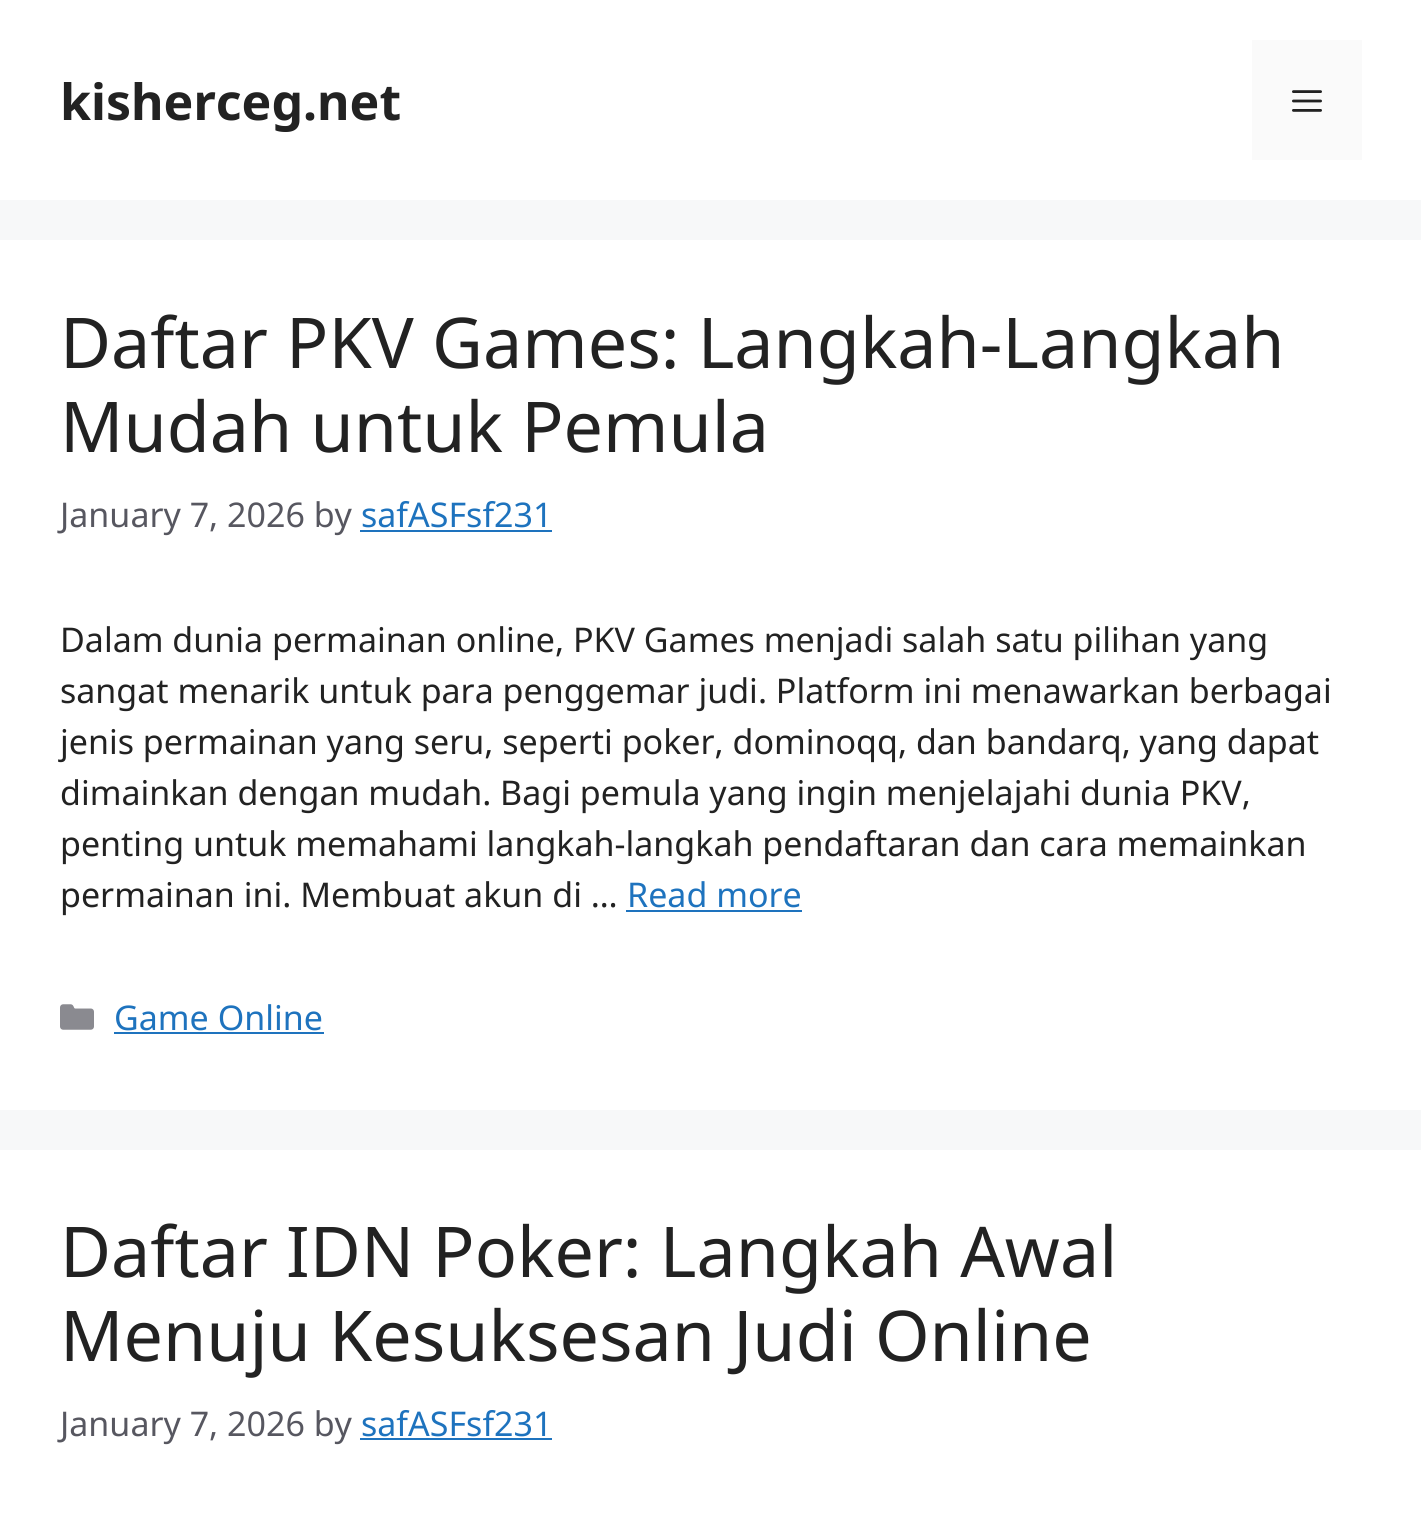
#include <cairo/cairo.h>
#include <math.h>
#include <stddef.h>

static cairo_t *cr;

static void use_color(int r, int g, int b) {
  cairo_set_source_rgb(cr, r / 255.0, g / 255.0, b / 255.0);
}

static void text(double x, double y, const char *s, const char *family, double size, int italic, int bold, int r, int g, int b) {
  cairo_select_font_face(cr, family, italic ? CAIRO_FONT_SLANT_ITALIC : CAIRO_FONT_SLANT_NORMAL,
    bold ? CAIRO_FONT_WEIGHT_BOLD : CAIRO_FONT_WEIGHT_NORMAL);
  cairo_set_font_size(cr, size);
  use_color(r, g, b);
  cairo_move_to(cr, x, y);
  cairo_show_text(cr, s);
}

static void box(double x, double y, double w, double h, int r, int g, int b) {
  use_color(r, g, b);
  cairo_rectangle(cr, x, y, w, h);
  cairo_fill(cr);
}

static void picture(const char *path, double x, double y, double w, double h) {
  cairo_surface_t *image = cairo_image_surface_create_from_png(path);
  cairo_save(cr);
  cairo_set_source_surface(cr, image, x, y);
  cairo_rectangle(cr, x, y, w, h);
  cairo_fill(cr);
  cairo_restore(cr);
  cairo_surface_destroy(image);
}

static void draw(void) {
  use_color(247, 248, 249);
  cairo_paint(cr);
  box(0, 0, 1421, 200, 255, 255, 255);
  box(1252, 40, 110, 120, 250, 250, 250);
  picture("img_01.png", 1292, 90, 30, 22);
  box(0, 240, 1421, 870, 255, 255, 255);
  box(360, 530, 192, 2, 30, 115, 190);
  box(626, 910, 176, 2, 30, 115, 190);
  picture("img_02.png", 60, 1004, 34, 26);
  box(114, 1032, 210, 2, 30, 115, 190);
  box(0, 1150, 1421, 380, 255, 255, 255);
  box(360, 1438, 192, 2, 30, 115, 190);
  text(60, 120, "kisherceg.net", "Noto Sans", 50, 0, 1, 34, 34, 34);
  text(60, 368, "Daftar PKV Games: Langkah-Langkah", "Noto Sans", 70, 0, 0, 34, 34, 34);
  text(60, 452, "Mudah untuk Pemula", "Noto Sans", 70, 0, 0, 34, 34, 34);
  text(60, 527, "January 7, 2026 by", "Noto Sans", 34, 0, 0, 87, 87, 96);
  text(361, 527, "safASFsf231", "Noto Sans", 34, 0, 0, 30, 115, 190);
  text(60, 652, "Dalam dunia permainan online, PKV Games menjadi salah satu pilihan yang", "Noto Sans", 34, 0, 0, 34, 34, 34);
  text(60, 703, "sangat menarik untuk para penggemar judi. Platform ini menawarkan berbagai", "Noto Sans", 34, 0, 0, 34, 34, 34);
  text(60, 754, "jenis permainan yang seru, seperti poker, dominoqq, dan bandarq, yang dapat", "Noto Sans", 34, 0, 0, 34, 34, 34);
  text(60, 805, "dimainkan dengan mudah. Bagi pemula yang ingin menjelajahi dunia PKV,", "Noto Sans", 34, 0, 0, 34, 34, 34);
  text(60, 856, "penting untuk memahami langkah-langkah pendaftaran dan cara memainkan", "Noto Sans", 34, 0, 0, 34, 34, 34);
  text(60, 907, "permainan ini. Membuat akun di …", "Noto Sans", 34, 0, 0, 34, 34, 34);
  text(627, 907, "Read more", "Noto Sans", 34, 0, 0, 30, 115, 190);
  text(114, 1030, "Game Online", "Noto Sans", 34, 0, 0, 30, 115, 190);
  text(60, 1277, "Daftar IDN Poker: Langkah Awal", "Noto Sans", 70, 0, 0, 34, 34, 34);
  text(60, 1361, "Menuju Kesuksesan Judi Online", "Noto Sans", 70, 0, 0, 34, 34, 34);
  text(60, 1436, "January 7, 2026 by", "Noto Sans", 34, 0, 0, 87, 87, 96);
  text(361, 1436, "safASFsf231", "Noto Sans", 34, 0, 0, 30, 115, 190);
}

int main(void) {
  cairo_surface_t *surface = cairo_image_surface_create(CAIRO_FORMAT_RGB24, 1421, 1530);
  cr = cairo_create(surface);
  cairo_font_options_t *options = cairo_font_options_create();
  cairo_font_options_set_hint_metrics(options, CAIRO_HINT_METRICS_OFF);
  cairo_font_options_set_hint_style(options, CAIRO_HINT_STYLE_NONE);
  cairo_set_font_options(cr, options);
  cairo_set_miter_limit(cr, 4);
  draw();
  cairo_surface_write_to_png(surface, "out.png");
  cairo_font_options_destroy(options);
  cairo_destroy(cr);
  cairo_surface_destroy(surface);
  return 0;
}
